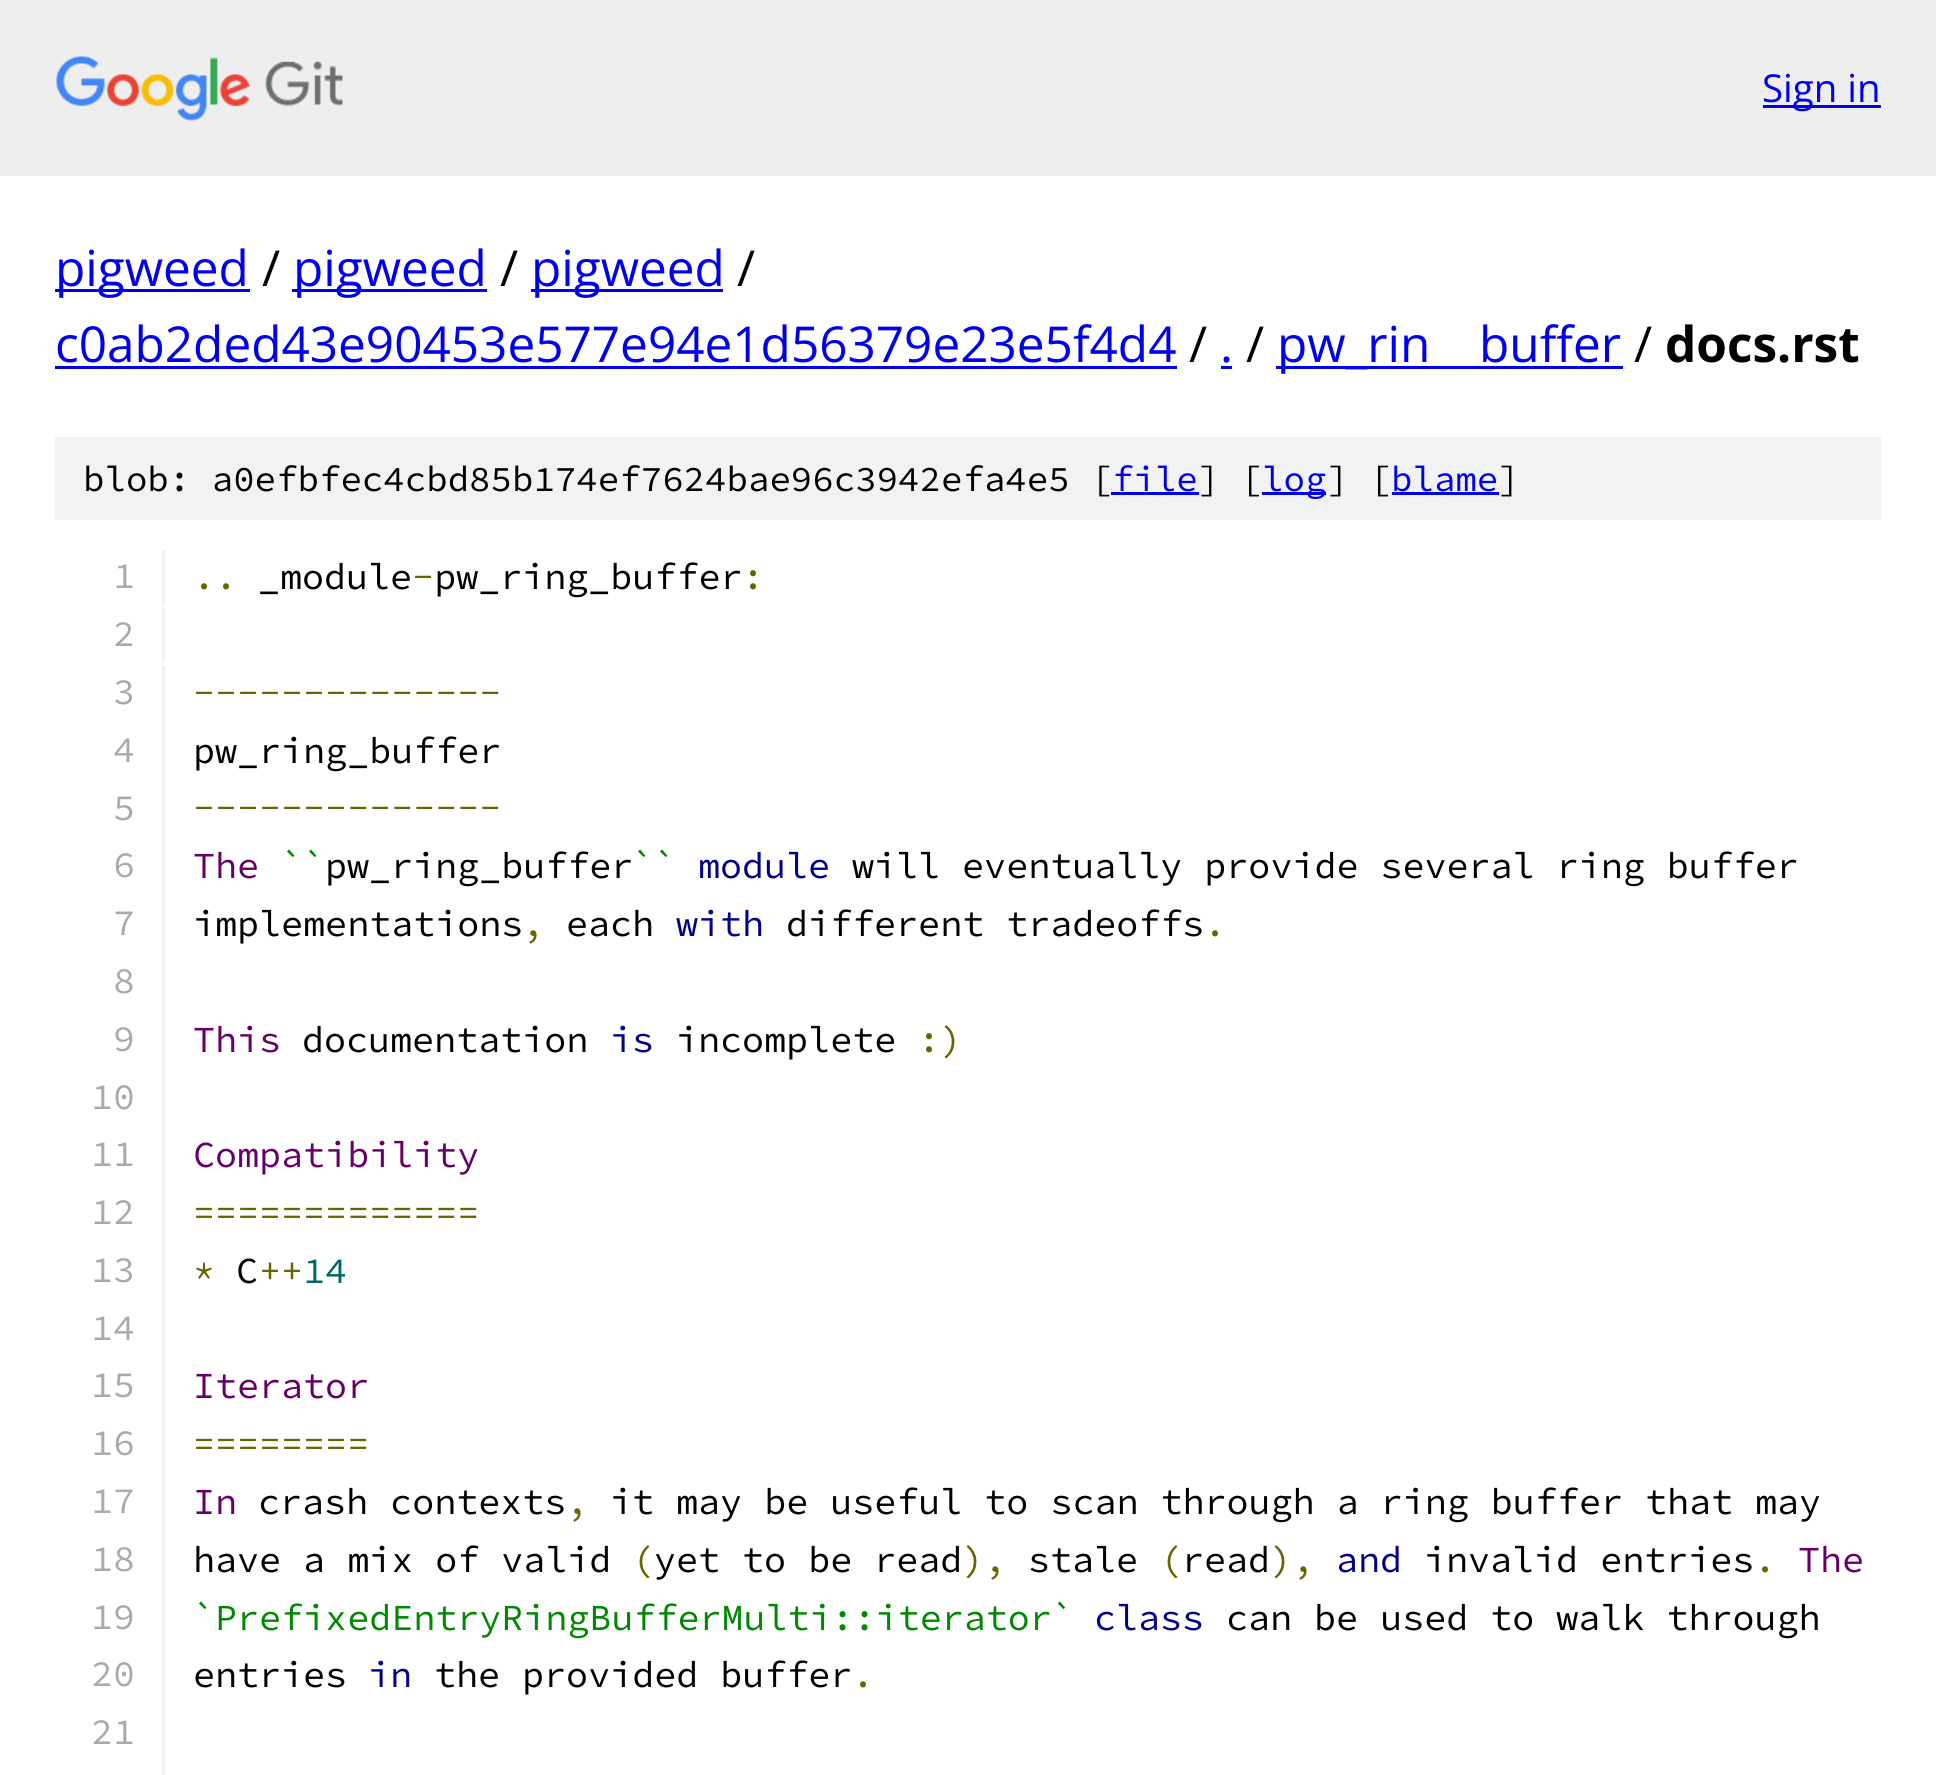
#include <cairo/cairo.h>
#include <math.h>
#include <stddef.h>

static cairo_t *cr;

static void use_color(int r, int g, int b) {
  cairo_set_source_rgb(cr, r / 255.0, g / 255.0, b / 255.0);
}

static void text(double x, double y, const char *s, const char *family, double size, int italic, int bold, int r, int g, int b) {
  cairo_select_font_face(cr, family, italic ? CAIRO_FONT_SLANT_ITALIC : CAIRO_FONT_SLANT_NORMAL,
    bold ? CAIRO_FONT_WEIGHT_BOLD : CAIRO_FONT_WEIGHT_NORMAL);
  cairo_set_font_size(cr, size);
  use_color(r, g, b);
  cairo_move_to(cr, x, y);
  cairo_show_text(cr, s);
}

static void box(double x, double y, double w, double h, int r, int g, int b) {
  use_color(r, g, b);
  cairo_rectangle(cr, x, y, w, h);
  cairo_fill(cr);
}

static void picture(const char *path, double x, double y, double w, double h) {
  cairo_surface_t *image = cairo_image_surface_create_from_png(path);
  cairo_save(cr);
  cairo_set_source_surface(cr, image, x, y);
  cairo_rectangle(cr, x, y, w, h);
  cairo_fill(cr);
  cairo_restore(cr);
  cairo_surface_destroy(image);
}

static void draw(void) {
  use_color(255, 255, 255);
  cairo_paint(cr);
  box(0, 0, 1936, 176, 238, 238, 238);
  picture("img_01.png", 56, 56, 287, 65);
  box(1763, 105, 118, 3, 0, 0, 238);
  box(55, 289, 195, 3, 0, 0, 238);
  box(292, 289, 195, 3, 0, 0, 238);
  box(531, 289, 192, 3, 0, 0, 238);
  box(55, 366, 1122, 3, 0, 0, 238);
  box(1221, 366, 11, 3, 0, 0, 238);
  box(1276, 366, 347, 3, 0, 0, 238);
  box(55, 437, 1826, 83, 241, 242, 243);
  box(1111, 492, 88, 3, 0, 0, 238);
  box(1262, 492, 64, 3, 0, 0, 238);
  box(1392, 492, 107, 3, 0, 0, 238);
  box(162, 550, 3, 55, 241, 242, 243);
  box(162, 608, 3, 55, 241, 242, 243);
  box(162, 666, 3, 1109, 241, 242, 243);
  text(1762, 102, "Sign in", "Open Sans", 38.5, 0, 0, 0, 0, 238);
  text(55, 286, "pigweed", "Open Sans", 49.5, 0, 0, 0, 0, 238);
  text(262, 286, "/", "Open Sans", 49.5, 0, 0, 0, 0, 0);
  text(293, 286, "pigweed", "Open Sans", 49.5, 0, 0, 0, 0, 238);
  text(500, 286, "/", "Open Sans", 49.5, 0, 0, 0, 0, 0);
  text(531, 286, "pigweed", "Open Sans", 49.5, 0, 0, 0, 0, 238);
  text(737, 286, "/", "Open Sans", 49.5, 0, 0, 0, 0, 0);
  text(55, 362, "c0ab2ded43e90453e577e94e1d56379e23e5f4d4", "Open Sans", 49.5, 0, 0, 0, 0, 238);
  text(1189, 362, "/", "Open Sans", 49.5, 0, 0, 0, 0, 0);
  text(1220, 362, ".", "Open Sans", 49.5, 0, 0, 0, 0, 238);
  text(1246, 362, "/", "Open Sans", 49.5, 0, 0, 0, 0, 0);
  text(1277, 362, "pw_rin", "Open Sans", 49.5, 0, 0, 0, 0, 238);
  text(1479, 362, "buffer", "Open Sans", 49.5, 0, 0, 0, 0, 238);
  text(1634, 362, "/", "Open Sans", 49.5, 0, 0, 0, 0, 0);
  text(1665, 362, "docs.rst", "Open Sans", 49.5, 0, 1, 0, 0, 0);
  text(83, 491, "blob: a0efbfec4cbd85b174ef7624bae96c3942efa4e5 [", "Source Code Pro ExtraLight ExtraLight", 35.75, 0, 0, 0, 0, 0);
  text(1112, 491, "file", "Source Code Pro ExtraLight ExtraLight", 35.75, 0, 0, 0, 0, 238);
  text(1198, 491, "] [", "Source Code Pro ExtraLight ExtraLight", 35.75, 0, 0, 0, 0, 0);
  text(1262, 491, "log", "Source Code Pro ExtraLight ExtraLight", 35.75, 0, 0, 0, 0, 238);
  text(1327, 491, "] [", "Source Code Pro ExtraLight ExtraLight", 35.75, 0, 0, 0, 0, 0);
  text(1391, 491, "blame", "Source Code Pro ExtraLight ExtraLight", 35.75, 0, 0, 0, 0, 238);
  text(1498, 491, "]", "Source Code Pro ExtraLight ExtraLight", 35.75, 0, 0, 0, 0, 0);
  text(113, 588, "1", "Source Code Pro ExtraLight ExtraLight", 36.7, 0, 0, 170, 170, 170);
  text(258, 589, "_module pw_ring_buffer", "Source Code Pro ExtraLight ExtraLight", 36.7, 0, 0, 0, 0, 0);
  text(742, 589, ":", "Source Code Pro ExtraLight ExtraLight", 36.7, 0, 0, 102, 102, 0);
  text(412, 589, "-", "Source Code Pro ExtraLight ExtraLight", 36.7, 0, 0, 102, 102, 0);
  text(193, 589, "..", "Source Code Pro ExtraLight ExtraLight", 36.7, 0, 0, 102, 102, 0);
  text(113, 646, "2", "Source Code Pro ExtraLight ExtraLight", 36.7, 0, 0, 170, 170, 170);
  text(113, 704, "3", "Source Code Pro ExtraLight ExtraLight", 36.7, 0, 0, 170, 170, 170);
  text(193, 705, "--------------", "Source Code Pro ExtraLight ExtraLight", 36.7, 0, 0, 102, 102, 0);
  text(113, 762, "4", "Source Code Pro ExtraLight ExtraLight", 36.7, 0, 0, 170, 170, 170);
  text(193, 763, "pw_ring_buffer", "Source Code Pro ExtraLight ExtraLight", 36.7, 0, 0, 0, 0, 0);
  text(113, 820, "5", "Source Code Pro ExtraLight ExtraLight", 36.7, 0, 0, 170, 170, 170);
  text(193, 820, "--------------", "Source Code Pro ExtraLight ExtraLight", 36.7, 0, 0, 102, 102, 0);
  text(113, 877, "6", "Source Code Pro ExtraLight ExtraLight", 36.7, 0, 0, 170, 170, 170);
  text(193, 878, "The", "Source Code Pro ExtraLight ExtraLight", 36.7, 0, 0, 102, 0, 102);
  text(281, 878, "``", "Source Code Pro ExtraLight ExtraLight", 36.7, 0, 0, 0, 136, 0);
  text(325, 878, "pw_ring_buffer", "Source Code Pro ExtraLight ExtraLight", 36.7, 0, 0, 0, 0, 0);
  text(632, 878, "``", "Source Code Pro ExtraLight ExtraLight", 36.7, 0, 0, 0, 136, 0);
  text(698, 878, "module", "Source Code Pro ExtraLight ExtraLight", 36.7, 0, 0, 0, 0, 136);
  text(852, 878, "will eventually provide several ring buffer", "Source Code Pro ExtraLight ExtraLight", 36.7, 0, 0, 0, 0, 0);
  text(113, 935, "7", "Source Code Pro ExtraLight ExtraLight", 36.7, 0, 0, 170, 170, 170);
  text(193, 936, "implementations", "Source Code Pro ExtraLight ExtraLight", 36.7, 0, 0, 0, 0, 0);
  text(522, 936, ",", "Source Code Pro ExtraLight ExtraLight", 36.7, 0, 0, 102, 102, 0);
  text(566, 936, "each", "Source Code Pro ExtraLight ExtraLight", 36.7, 0, 0, 0, 0, 0);
  text(676, 936, "with", "Source Code Pro ExtraLight ExtraLight", 36.7, 0, 0, 0, 0, 136);
  text(786, 936, "different tradeoffs", "Source Code Pro ExtraLight ExtraLight", 36.7, 0, 0, 0, 0, 0);
  text(1204, 936, ".", "Source Code Pro ExtraLight ExtraLight", 36.7, 0, 0, 102, 102, 0);
  text(113, 993, "8", "Source Code Pro ExtraLight ExtraLight", 36.7, 0, 0, 170, 170, 170);
  text(113, 1051, "9", "Source Code Pro ExtraLight ExtraLight", 36.7, 0, 0, 170, 170, 170);
  text(193, 1052, "This", "Source Code Pro ExtraLight ExtraLight", 36.7, 0, 0, 102, 0, 102);
  text(302, 1052, "documentation", "Source Code Pro ExtraLight ExtraLight", 36.7, 0, 0, 0, 0, 0);
  text(610, 1052, "is", "Source Code Pro ExtraLight ExtraLight", 36.7, 0, 0, 0, 0, 136);
  text(676, 1052, "incomplete", "Source Code Pro ExtraLight ExtraLight", 36.7, 0, 0, 0, 0, 0);
  text(918, 1052, ":)", "Source Code Pro ExtraLight ExtraLight", 36.7, 0, 0, 102, 102, 0);
  text(91, 1109, "10", "Source Code Pro ExtraLight ExtraLight", 36.7, 0, 0, 170, 170, 170);
  text(91, 1166, "11", "Source Code Pro ExtraLight ExtraLight", 36.7, 0, 0, 170, 170, 170);
  text(193, 1167, "Compatibility", "Source Code Pro ExtraLight ExtraLight", 36.7, 0, 0, 102, 0, 102);
  text(91, 1224, "12", "Source Code Pro ExtraLight ExtraLight", 36.7, 0, 0, 170, 170, 170);
  text(193, 1225, "=============", "Source Code Pro ExtraLight ExtraLight", 36.7, 0, 0, 102, 102, 0);
  text(91, 1282, "13", "Source Code Pro ExtraLight ExtraLight", 36.7, 0, 0, 170, 170, 170);
  text(193, 1283, "*", "Source Code Pro ExtraLight ExtraLight", 36.7, 0, 0, 102, 102, 0);
  text(236, 1283, "C", "Source Code Pro ExtraLight ExtraLight", 36.7, 0, 0, 0, 0, 0);
  text(259, 1283, "++", "Source Code Pro ExtraLight ExtraLight", 36.7, 0, 0, 102, 102, 0);
  text(303, 1283, "14", "Source Code Pro ExtraLight ExtraLight", 36.7, 0, 0, 0, 102, 102);
  text(91, 1340, "14", "Source Code Pro ExtraLight ExtraLight", 36.7, 0, 0, 170, 170, 170);
  text(91, 1397, "15", "Source Code Pro ExtraLight ExtraLight", 36.7, 0, 0, 170, 170, 170);
  text(193, 1398, "Iterator", "Source Code Pro ExtraLight ExtraLight", 36.7, 0, 0, 102, 0, 102);
  text(91, 1455, "16", "Source Code Pro ExtraLight ExtraLight", 36.7, 0, 0, 170, 170, 170);
  text(193, 1456, "========", "Source Code Pro ExtraLight ExtraLight", 36.7, 0, 0, 102, 102, 0);
  text(91, 1513, "17", "Source Code Pro ExtraLight ExtraLight", 36.7, 0, 0, 170, 170, 170);
  text(193, 1514, "In", "Source Code Pro ExtraLight ExtraLight", 36.7, 0, 0, 102, 0, 102);
  text(258, 1514, "crash contexts", "Source Code Pro ExtraLight ExtraLight", 36.7, 0, 0, 0, 0, 0);
  text(566, 1514, ",", "Source Code Pro ExtraLight ExtraLight", 36.7, 0, 0, 102, 102, 0);
  text(610, 1514, "it may be useful to scan through a ring buffer that may", "Source Code Pro ExtraLight ExtraLight", 36.7, 0, 0, 0, 0, 0);
  text(91, 1571, "18", "Source Code Pro ExtraLight ExtraLight", 36.7, 0, 0, 170, 170, 170);
  text(193, 1572, "have a mix of valid", "Source Code Pro ExtraLight ExtraLight", 36.7, 0, 0, 0, 0, 0);
  text(632, 1572, "(", "Source Code Pro ExtraLight ExtraLight", 36.7, 0, 0, 102, 102, 0);
  text(654, 1572, "yet to be read", "Source Code Pro ExtraLight ExtraLight", 36.7, 0, 0, 0, 0, 0);
  text(962, 1572, "),", "Source Code Pro ExtraLight ExtraLight", 36.7, 0, 0, 102, 102, 0);
  text(1028, 1572, "stale", "Source Code Pro ExtraLight ExtraLight", 36.7, 0, 0, 0, 0, 0);
  text(1160, 1572, "(", "Source Code Pro ExtraLight ExtraLight", 36.7, 0, 0, 102, 102, 0);
  text(1182, 1572, "read", "Source Code Pro ExtraLight ExtraLight", 36.7, 0, 0, 0, 0, 0);
  text(1270, 1572, "),", "Source Code Pro ExtraLight ExtraLight", 36.7, 0, 0, 102, 102, 0);
  text(1336, 1572, "and", "Source Code Pro ExtraLight ExtraLight", 36.7, 0, 0, 0, 0, 136);
  text(1424, 1572, "invalid entries", "Source Code Pro ExtraLight ExtraLight", 36.7, 0, 0, 0, 0, 0);
  text(1754, 1572, ".", "Source Code Pro ExtraLight ExtraLight", 36.7, 0, 0, 102, 102, 0);
  text(1798, 1572, "The", "Source Code Pro ExtraLight ExtraLight", 36.7, 0, 0, 102, 0, 102);
  text(91, 1629, "19", "Source Code Pro ExtraLight ExtraLight", 36.7, 0, 0, 170, 170, 170);
  text(193, 1630, "`PrefixedEntryRingBufferMulti::iterator`", "Source Code Pro ExtraLight ExtraLight", 36.7, 0, 0, 0, 136, 0);
  text(1094, 1630, "class", "Source Code Pro ExtraLight ExtraLight", 36.7, 0, 0, 0, 0, 136);
  text(1226, 1630, "can be used to walk through", "Source Code Pro ExtraLight ExtraLight", 36.7, 0, 0, 0, 0, 0);
  text(91, 1686, "20", "Source Code Pro ExtraLight ExtraLight", 36.7, 0, 0, 170, 170, 170);
  text(193, 1687, "entries", "Source Code Pro ExtraLight ExtraLight", 36.7, 0, 0, 0, 0, 0);
  text(368, 1687, "in", "Source Code Pro ExtraLight ExtraLight", 36.7, 0, 0, 0, 0, 136);
  text(434, 1687, "the provided buffer", "Source Code Pro ExtraLight ExtraLight", 36.7, 0, 0, 0, 0, 0);
  text(852, 1687, ".", "Source Code Pro ExtraLight ExtraLight", 36.7, 0, 0, 102, 102, 0);
  text(91, 1744, "21", "Source Code Pro ExtraLight ExtraLight", 36.7, 0, 0, 170, 170, 170);
}

int main(void) {
  cairo_surface_t *surface = cairo_image_surface_create(CAIRO_FORMAT_RGB24, 1936, 1775);
  cr = cairo_create(surface);
  cairo_font_options_t *options = cairo_font_options_create();
  cairo_font_options_set_hint_metrics(options, CAIRO_HINT_METRICS_OFF);
  cairo_font_options_set_hint_style(options, CAIRO_HINT_STYLE_NONE);
  cairo_set_font_options(cr, options);
  cairo_set_miter_limit(cr, 4);
  draw();
  cairo_surface_write_to_png(surface, "out.png");
  cairo_font_options_destroy(options);
  cairo_destroy(cr);
  cairo_surface_destroy(surface);
  return 0;
}
